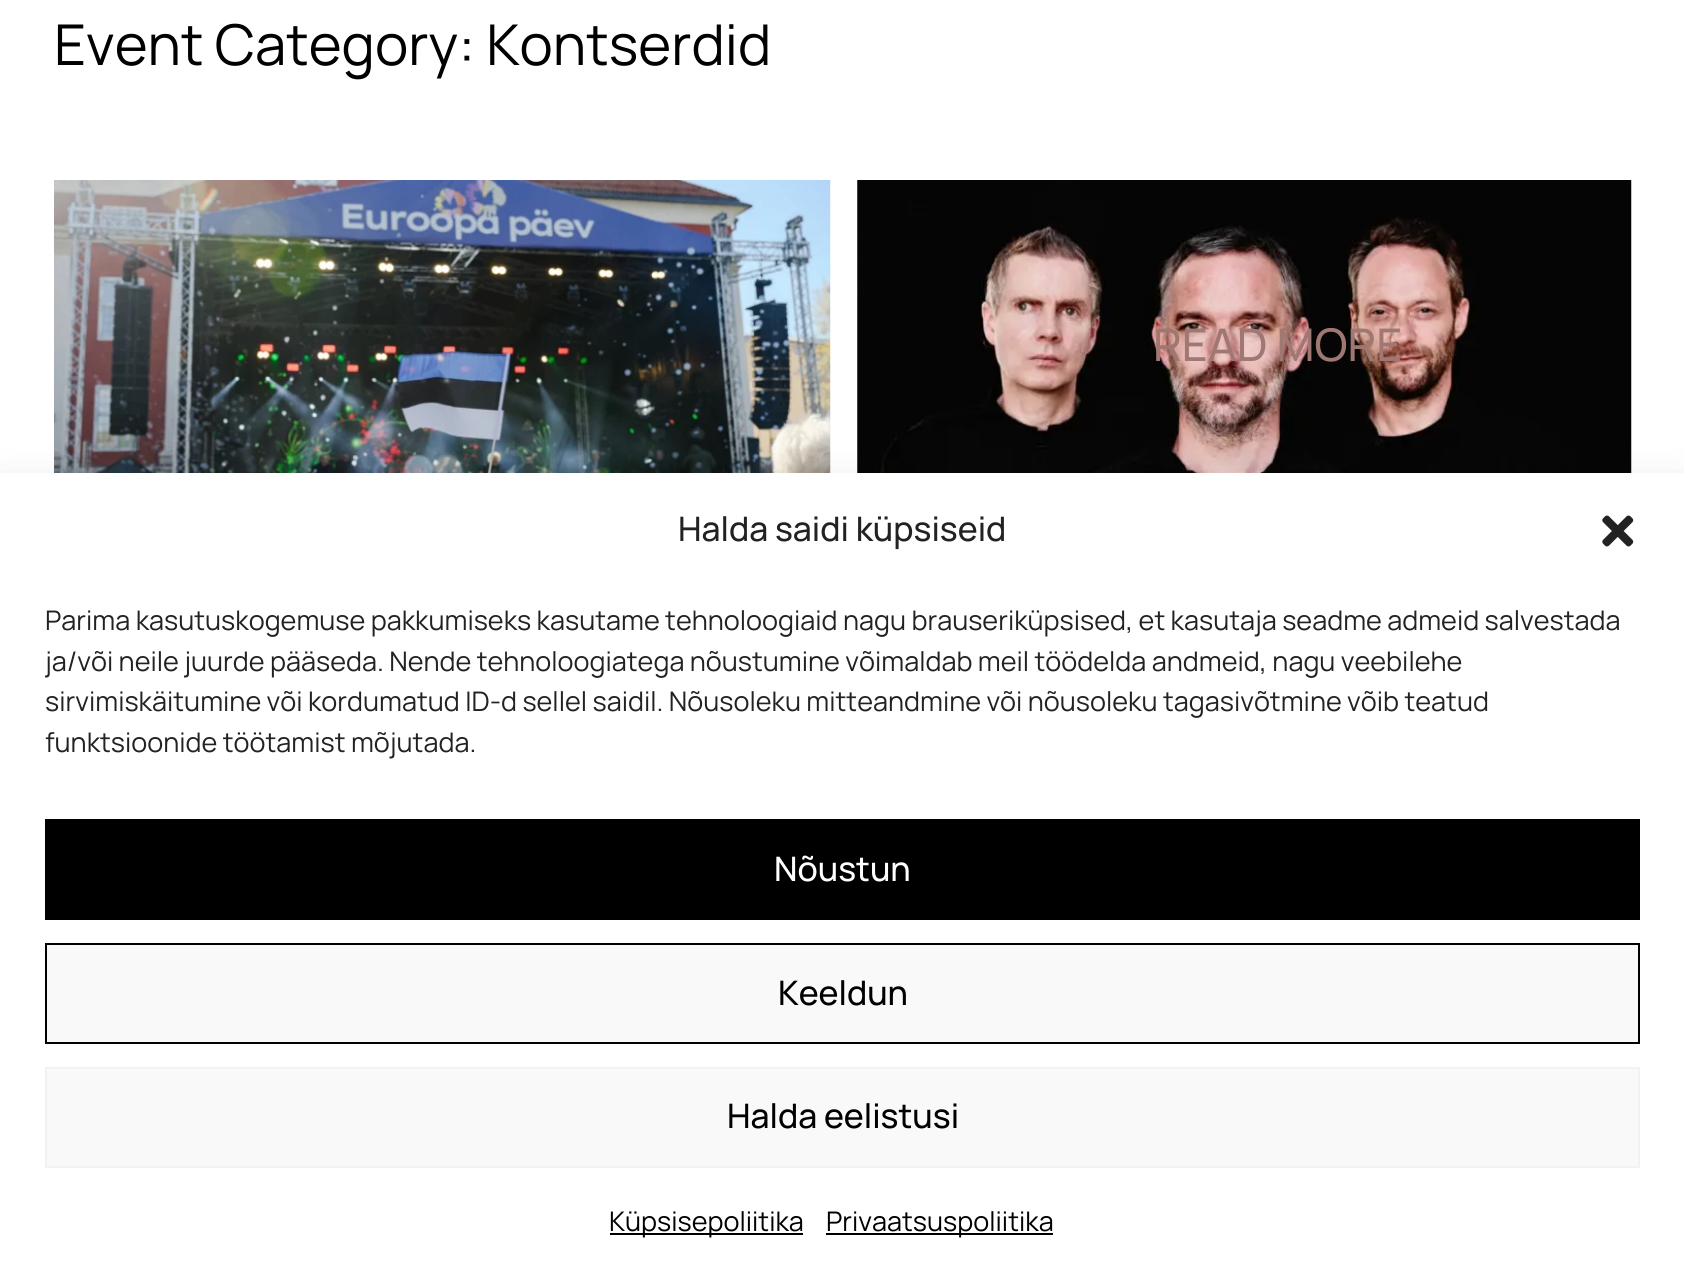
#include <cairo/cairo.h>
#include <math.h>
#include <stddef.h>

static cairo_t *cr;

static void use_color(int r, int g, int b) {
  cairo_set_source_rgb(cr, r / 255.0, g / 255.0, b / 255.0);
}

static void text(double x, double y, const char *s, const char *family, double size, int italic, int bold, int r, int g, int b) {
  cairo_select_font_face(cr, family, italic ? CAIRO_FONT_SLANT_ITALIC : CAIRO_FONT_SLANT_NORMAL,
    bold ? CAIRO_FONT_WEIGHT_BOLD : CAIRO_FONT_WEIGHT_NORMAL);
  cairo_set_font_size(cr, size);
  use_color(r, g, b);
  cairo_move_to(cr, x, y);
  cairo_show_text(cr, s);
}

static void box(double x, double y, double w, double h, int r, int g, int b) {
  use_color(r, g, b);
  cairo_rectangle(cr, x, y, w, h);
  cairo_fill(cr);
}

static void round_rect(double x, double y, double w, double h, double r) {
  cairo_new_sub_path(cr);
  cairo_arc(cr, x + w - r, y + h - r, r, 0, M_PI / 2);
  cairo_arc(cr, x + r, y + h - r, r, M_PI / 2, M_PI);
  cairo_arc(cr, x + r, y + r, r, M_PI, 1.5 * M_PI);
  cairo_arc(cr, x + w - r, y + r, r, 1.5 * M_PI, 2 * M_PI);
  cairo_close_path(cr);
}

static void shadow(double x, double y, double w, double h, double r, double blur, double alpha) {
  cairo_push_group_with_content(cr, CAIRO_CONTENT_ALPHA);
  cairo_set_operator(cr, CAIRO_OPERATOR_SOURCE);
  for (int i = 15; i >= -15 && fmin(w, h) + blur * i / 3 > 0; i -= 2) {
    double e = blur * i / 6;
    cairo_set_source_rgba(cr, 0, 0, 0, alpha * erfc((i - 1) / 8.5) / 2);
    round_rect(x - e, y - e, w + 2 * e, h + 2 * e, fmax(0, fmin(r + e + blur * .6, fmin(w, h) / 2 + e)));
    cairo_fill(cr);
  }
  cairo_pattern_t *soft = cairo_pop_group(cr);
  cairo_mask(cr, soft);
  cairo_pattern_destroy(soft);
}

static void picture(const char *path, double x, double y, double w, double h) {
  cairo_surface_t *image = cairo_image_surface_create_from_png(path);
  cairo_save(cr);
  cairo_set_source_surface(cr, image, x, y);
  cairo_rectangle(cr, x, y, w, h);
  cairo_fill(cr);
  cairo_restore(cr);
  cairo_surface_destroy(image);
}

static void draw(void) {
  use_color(255, 255, 255);
  cairo_paint(cr);
  picture("img_01.png", 54, 180, 777, 293);
  picture("img_02.png", 857, 180, 775, 293);
  use_color(0, 0, 0);
  shadow(0, 495, 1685, 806, 0, 22.5, 0.19);
  box(0, 473, 1684, 803, 255, 255, 255);
  picture("img_03.png", 1602, 515, 32, 32);
  box(45, 819, 1595, 101, 0, 0, 0);
  use_color(249, 249, 249);
  cairo_rectangle(cr, 46, 944, 1593, 99);
  cairo_fill_preserve(cr);
  use_color(0, 0, 0);
  cairo_stroke(cr);
  use_color(249, 249, 249);
  cairo_rectangle(cr, 46, 1068, 1593, 99);
  cairo_fill_preserve(cr);
  use_color(242, 242, 242);
  cairo_stroke(cr);
  box(610, 1233, 193, 2, 0, 0, 0);
  box(826, 1233, 227, 2, 0, 0, 0);
  text(54, 65, "Event Category: Kontserdid", "Manrope", 56.25, 0, 0, 0, 0, 0);
  text(1153, 361, "READ MORE", "Manrope Medium", 45, 0, 0, 160, 120, 115);
  text(678, 541, "Halda saidi küpsiseid", "Manrope Medium", 33.75, 0, 0, 34, 34, 34);
  text(45, 630, "Parima kasutuskogemuse pakkumiseks kasutame tehnoloogiaid nagu brauseriküpsised, et kasutaja seadme admeid salvestada", "Manrope", 27, 0, 0, 34, 34, 34);
  cairo_save(cr);
  cairo_rectangle(cr, 45, 601, 1595, 173);
  cairo_clip(cr);
  text(45, 671, "ja/või neile juurde pääseda. Nende tehnoloogiatega nõustumine võimaldab meil töödelda andmeid, nagu veebilehe", "Manrope", 27, 0, 0, 34, 34, 34);
  cairo_restore(cr);
  text(45, 711, "sirvimiskäitumine või kordumatud ID-d sellel saidil. Nõusoleku mitteandmine või nõusoleku tagasivõtmine võib teatud", "Manrope", 27, 0, 0, 34, 34, 34);
  text(45, 752, "funktsioonide töötamist mõjutada.", "Manrope", 27, 0, 0, 34, 34, 34);
  text(774, 881, "Nõustun", "Manrope Medium", 33.75, 0, 0, 255, 255, 255);
  text(778, 1005, "Keeldun", "Manrope Medium", 33.75, 0, 0, 0, 0, 0);
  text(727, 1128, "Halda eelistusi", "Manrope Medium", 33.75, 0, 0, 0, 0, 0);
  text(609, 1231, "Küpsisepoliitika", "Manrope", 27, 0, 0, 0, 0, 0);
  text(826, 1231, "Privaatsuspoliitika", "Manrope", 27, 0, 0, 0, 0, 0);
}

int main(void) {
  cairo_surface_t *surface = cairo_image_surface_create(CAIRO_FORMAT_RGB24, 1684, 1276);
  cr = cairo_create(surface);
  cairo_font_options_t *options = cairo_font_options_create();
  cairo_font_options_set_hint_metrics(options, CAIRO_HINT_METRICS_OFF);
  cairo_font_options_set_hint_style(options, CAIRO_HINT_STYLE_NONE);
  cairo_set_font_options(cr, options);
  cairo_set_miter_limit(cr, 4);
  draw();
  cairo_surface_write_to_png(surface, "out.png");
  cairo_font_options_destroy(options);
  cairo_destroy(cr);
  cairo_surface_destroy(surface);
  return 0;
}
